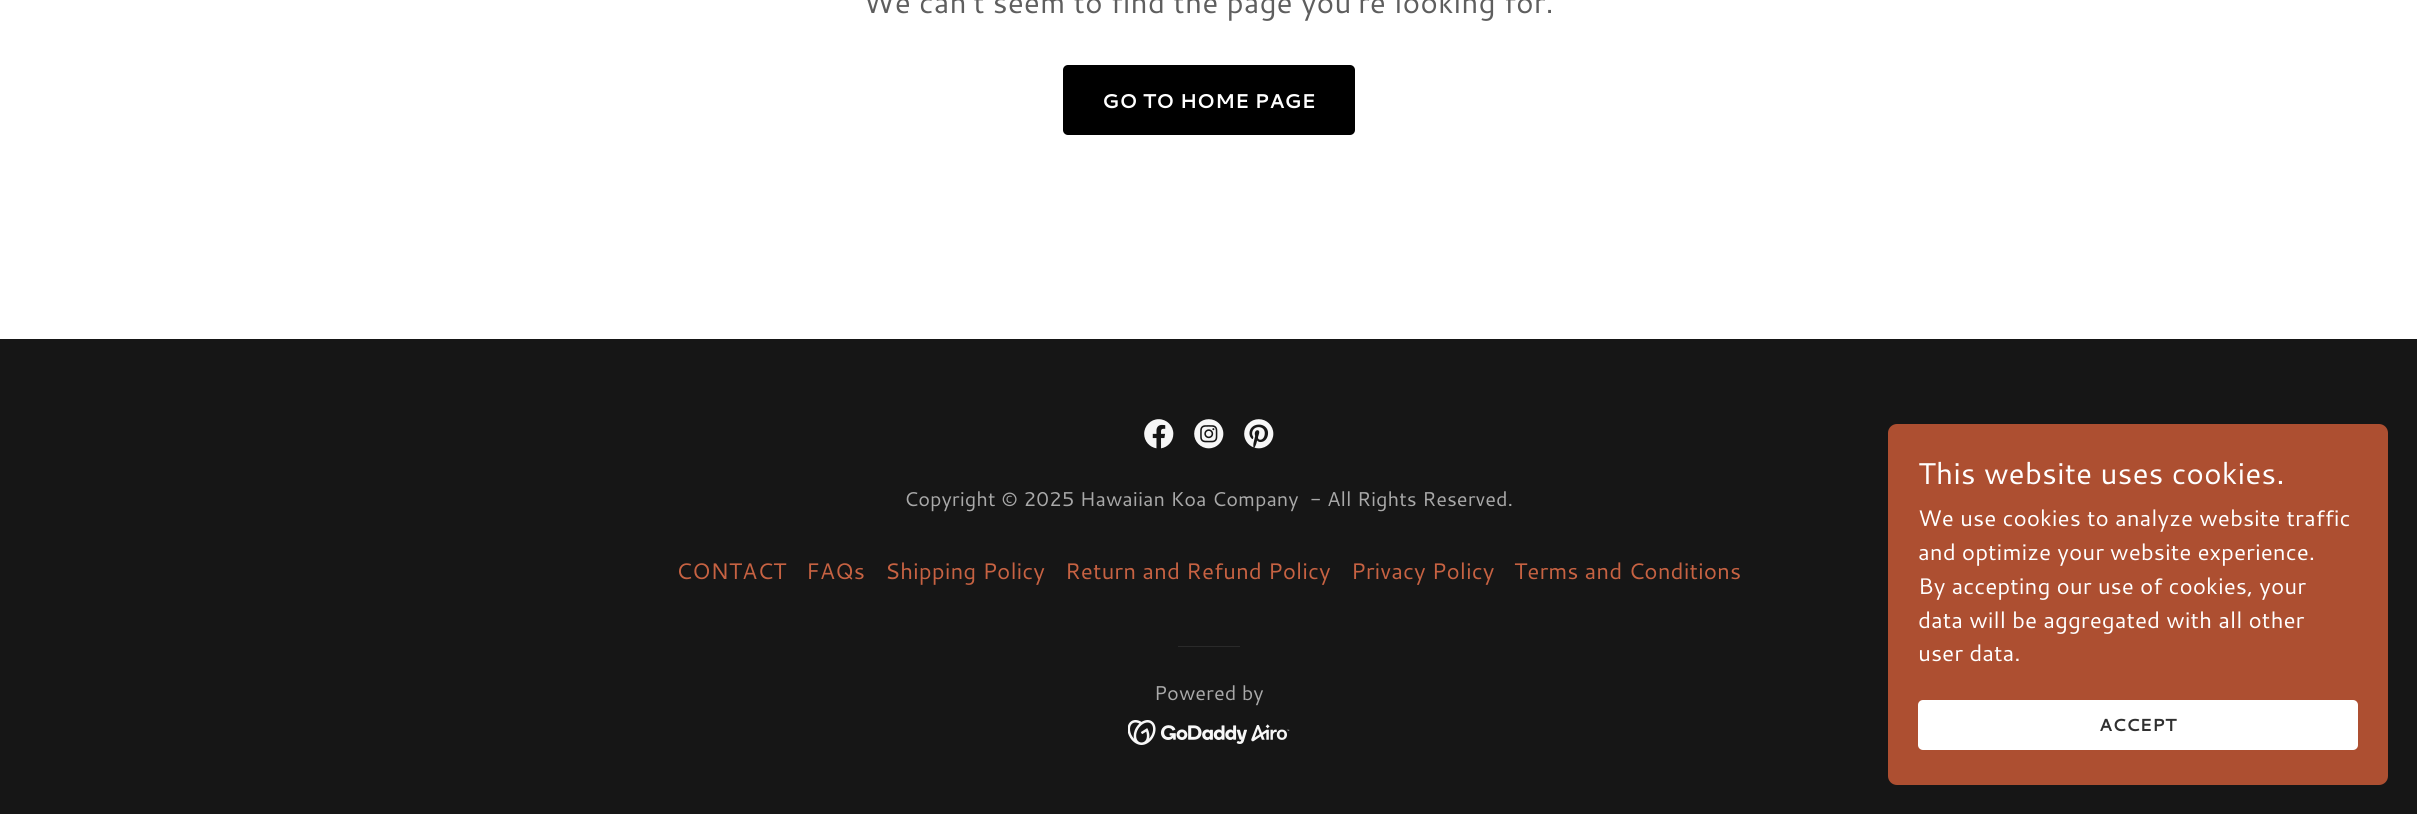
#include <cairo/cairo.h>
#include <math.h>
#include <stddef.h>

static cairo_t *cr;

static void use_color(int r, int g, int b) {
  cairo_set_source_rgb(cr, r / 255.0, g / 255.0, b / 255.0);
}

static void text(double x, double y, const char *s, const char *family, double size, int italic, int bold, int r, int g, int b) {
  cairo_select_font_face(cr, family, italic ? CAIRO_FONT_SLANT_ITALIC : CAIRO_FONT_SLANT_NORMAL,
    bold ? CAIRO_FONT_WEIGHT_BOLD : CAIRO_FONT_WEIGHT_NORMAL);
  cairo_set_font_size(cr, size);
  use_color(r, g, b);
  cairo_move_to(cr, x, y);
  cairo_show_text(cr, s);
}

static void box(double x, double y, double w, double h, int r, int g, int b) {
  use_color(r, g, b);
  cairo_rectangle(cr, x, y, w, h);
  cairo_fill(cr);
}

static void round_rect(double x, double y, double w, double h, double r) {
  cairo_new_sub_path(cr);
  cairo_arc(cr, x + w - r, y + h - r, r, 0, M_PI / 2);
  cairo_arc(cr, x + r, y + h - r, r, M_PI / 2, M_PI);
  cairo_arc(cr, x + r, y + r, r, M_PI, 1.5 * M_PI);
  cairo_arc(cr, x + w - r, y + r, r, 1.5 * M_PI, 2 * M_PI);
  cairo_close_path(cr);
}

static void picture(const char *path, double x, double y, double w, double h) {
  cairo_surface_t *image = cairo_image_surface_create_from_png(path);
  cairo_save(cr);
  cairo_set_source_surface(cr, image, x, y);
  cairo_rectangle(cr, x, y, w, h);
  cairo_fill(cr);
  cairo_restore(cr);
  cairo_surface_destroy(image);
}

static void draw(void) {
  use_color(22, 22, 22);
  cairo_paint(cr);
  box(0, 0, 2417, 339, 255, 255, 255);
  use_color(0, 0, 0);
  round_rect(1063, 65, 292, 70, 5);
  cairo_fill(cr);
  picture("img_01.png", 1144, 419, 30, 30);
  picture("img_02.png", 1194, 419, 30, 30);
  picture("img_03.png", 1244, 419, 30, 30);
  box(1178, 646, 62, 1, 42, 42, 42);
  picture("img_04.png", 1128, 720, 162, 25);
  use_color(173, 79, 49);
  round_rect(1888, 424, 500, 361, 9);
  cairo_fill(cr);
  use_color(255, 255, 255);
  round_rect(1918, 700, 440, 50, 5);
  cairo_fill(cr);
  text(863, 13, "We can’t seem to find the page you’re looking for.", "Cantarell", 30, 0, 0, 94, 94, 94);
  text(1102, 108, "GO TO HOME PAGE", "Cantarell", 20, 0, 1, 255, 255, 255);
  text(904, 506, "Copyright © 2025 Hawaiian Koa Company  - All Rights Reserved.", "Cantarell", 20, 0, 0, 169, 169, 169);
  text(676, 579, "CONTACT", "Cantarell", 22.5, 0, 0, 199, 98, 66);
  text(806, 579, "FAQs", "Cantarell", 22.5, 0, 0, 199, 98, 66);
  text(885, 579, "Shipping Policy", "Cantarell", 22.5, 0, 0, 199, 98, 66);
  text(1065, 579, "Return and Refund Policy", "Cantarell", 22.5, 0, 0, 199, 98, 66);
  text(1351, 579, "Privacy Policy", "Cantarell", 22.5, 0, 0, 199, 98, 66);
  text(1514, 579, "Terms and Conditions", "Cantarell", 22.5, 0, 0, 199, 98, 66);
  text(1154, 700, "Powered by", "Cantarell", 20, 0, 0, 169, 169, 169);
  text(1918, 484, "This website uses cookies.", "Cantarell", 30, 0, 0, 255, 255, 255);
  text(1918, 526, "We use cookies to analyze website traffic", "Cantarell", 22.5, 0, 0, 255, 255, 255);
  text(1918, 560, "and optimize your website experience.", "Cantarell", 22.5, 0, 0, 255, 255, 255);
  text(1918, 594, "By accepting our use of cookies, your", "Cantarell", 22.5, 0, 0, 255, 255, 255);
  text(1918, 628, "data will be aggregated with all other", "Cantarell", 22.5, 0, 0, 255, 255, 255);
  text(1918, 661, "user data.", "Cantarell", 22.5, 0, 0, 255, 255, 255);
  text(2099, 731, "ACCEPT", "Cantarell", 17.5, 0, 1, 48, 48, 48);
}

int main(void) {
  cairo_surface_t *surface = cairo_image_surface_create(CAIRO_FORMAT_RGB24, 2417, 814);
  cr = cairo_create(surface);
  cairo_font_options_t *options = cairo_font_options_create();
  cairo_font_options_set_hint_metrics(options, CAIRO_HINT_METRICS_OFF);
  cairo_font_options_set_hint_style(options, CAIRO_HINT_STYLE_NONE);
  cairo_set_font_options(cr, options);
  cairo_set_miter_limit(cr, 4);
  draw();
  cairo_surface_write_to_png(surface, "out.png");
  cairo_font_options_destroy(options);
  cairo_destroy(cr);
  cairo_surface_destroy(surface);
  return 0;
}
